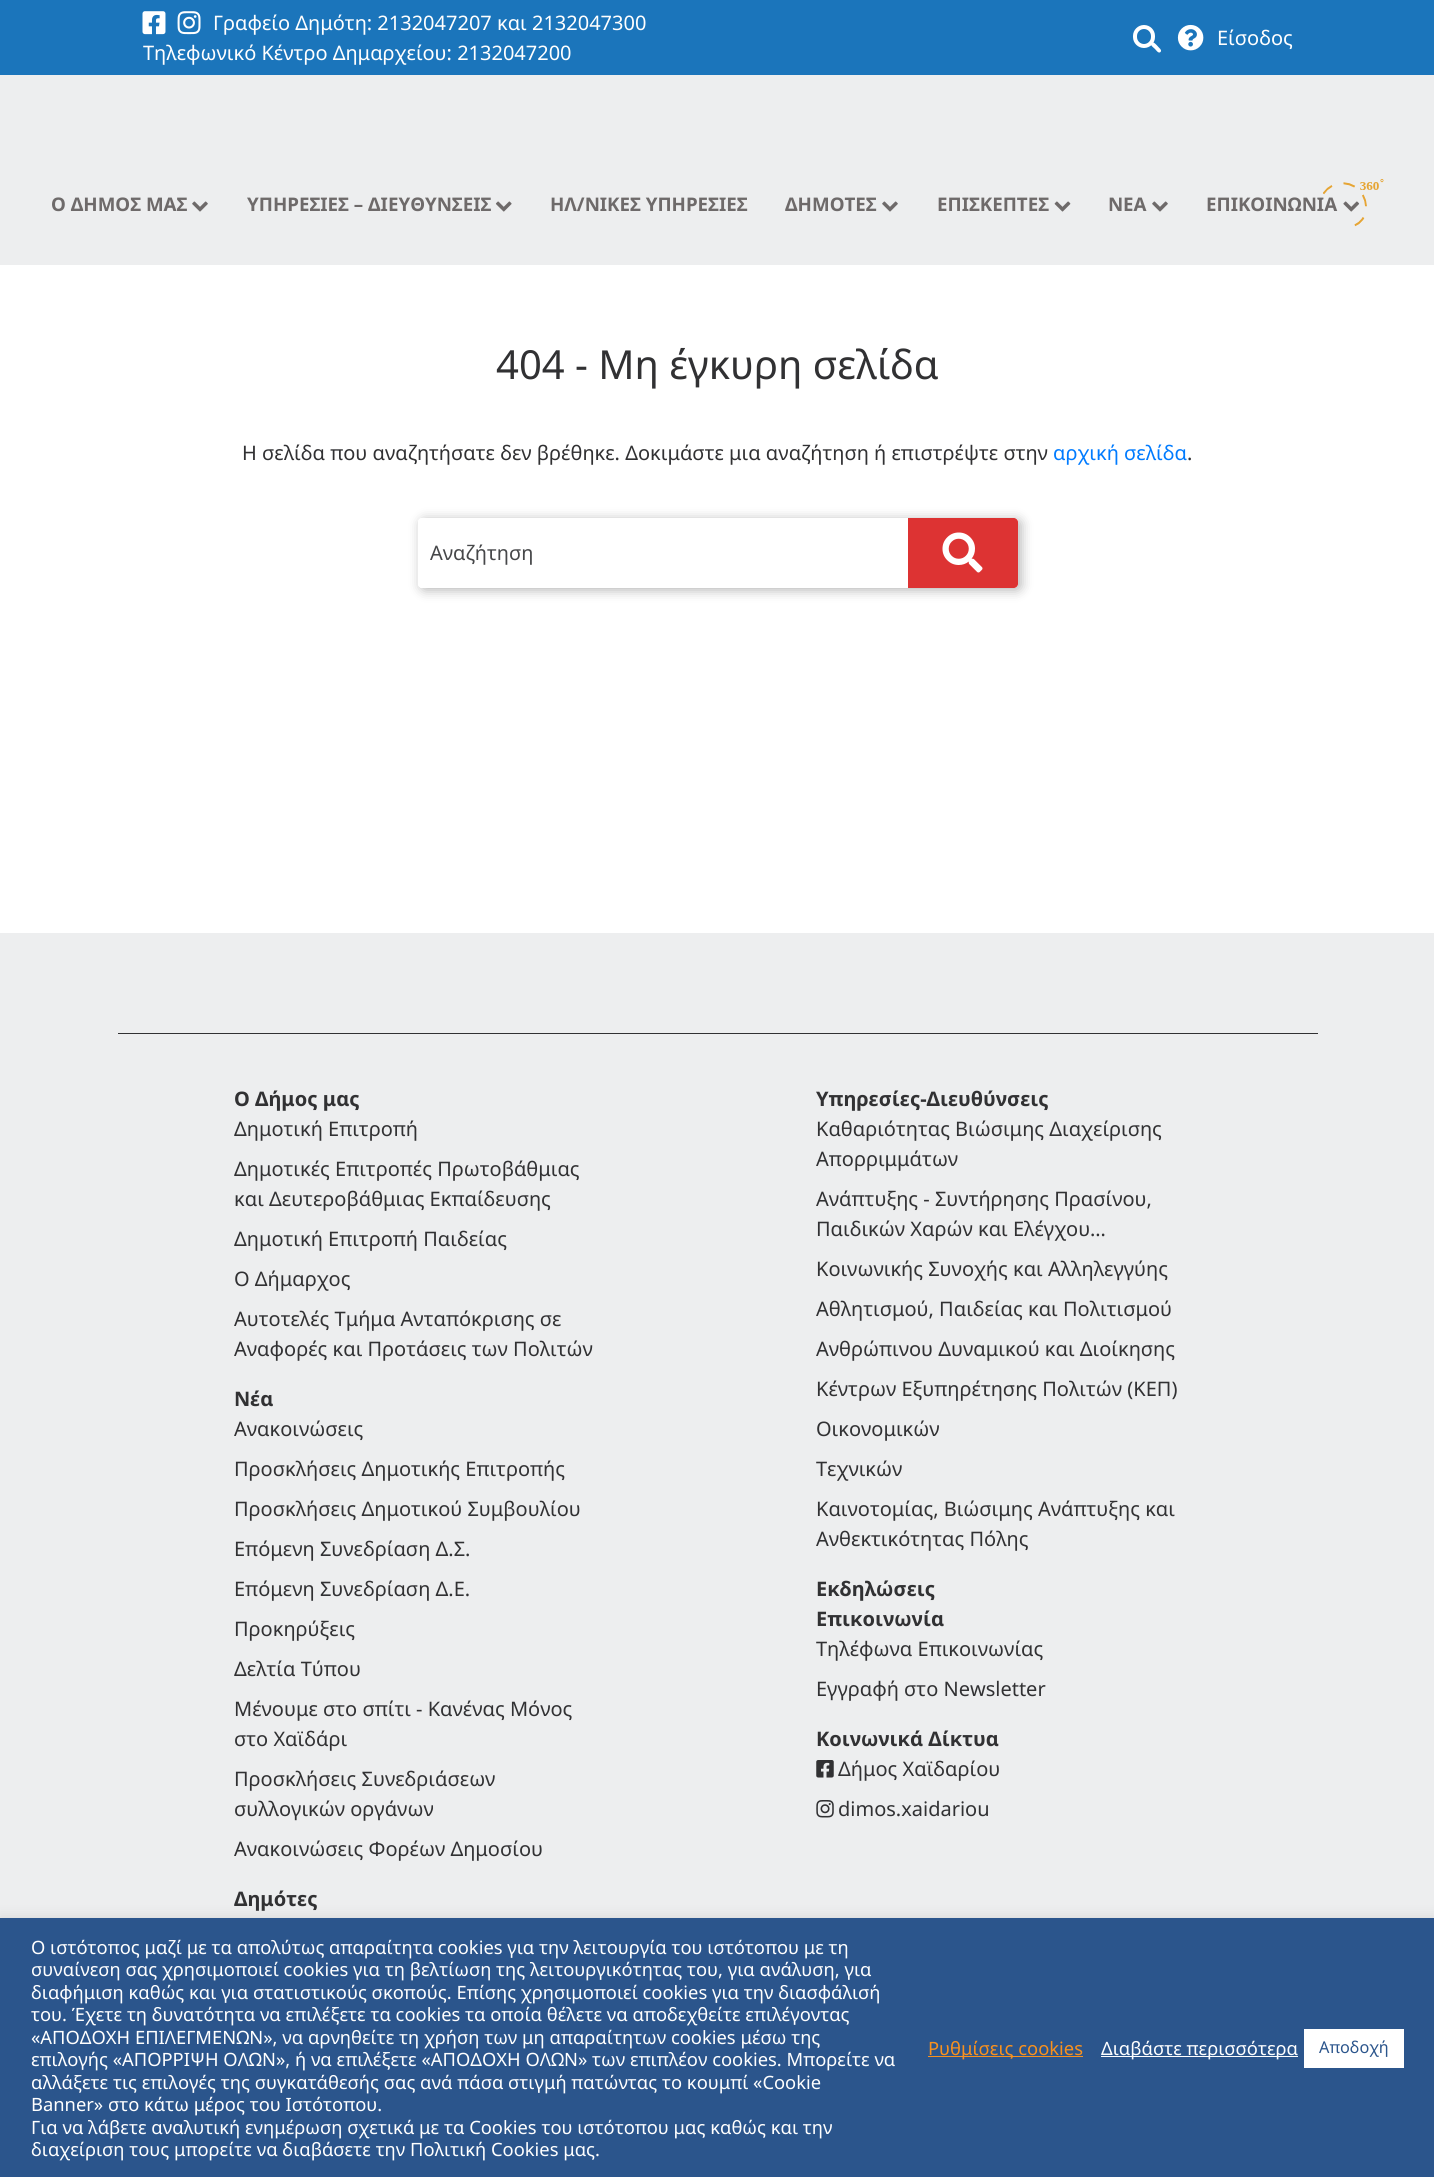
#include <cairo/cairo.h>
#include <math.h>
#include <stddef.h>

static cairo_t *cr;

static void use_color(int r, int g, int b) {
  cairo_set_source_rgb(cr, r / 255.0, g / 255.0, b / 255.0);
}

static void text(double x, double y, const char *s, const char *family, double size, int italic, int bold, int r, int g, int b) {
  cairo_select_font_face(cr, family, italic ? CAIRO_FONT_SLANT_ITALIC : CAIRO_FONT_SLANT_NORMAL,
    bold ? CAIRO_FONT_WEIGHT_BOLD : CAIRO_FONT_WEIGHT_NORMAL);
  cairo_set_font_size(cr, size);
  use_color(r, g, b);
  cairo_move_to(cr, x, y);
  cairo_show_text(cr, s);
}

static void box(double x, double y, double w, double h, int r, int g, int b) {
  use_color(r, g, b);
  cairo_rectangle(cr, x, y, w, h);
  cairo_fill(cr);
}

static void round_rect(double x, double y, double w, double h, double r) {
  cairo_new_sub_path(cr);
  cairo_arc(cr, x + w - r, y + h - r, r, 0, M_PI / 2);
  cairo_arc(cr, x + r, y + h - r, r, M_PI / 2, M_PI);
  cairo_arc(cr, x + r, y + r, r, M_PI, 1.5 * M_PI);
  cairo_arc(cr, x + w - r, y + r, r, 1.5 * M_PI, 2 * M_PI);
  cairo_close_path(cr);
}

static void shadow(double x, double y, double w, double h, double r, double blur, double alpha) {
  cairo_push_group_with_content(cr, CAIRO_CONTENT_ALPHA);
  cairo_set_operator(cr, CAIRO_OPERATOR_SOURCE);
  for (int i = 15; i >= -15 && fmin(w, h) + blur * i / 3 > 0; i -= 2) {
    double e = blur * i / 6;
    cairo_set_source_rgba(cr, 0, 0, 0, alpha * erfc((i - 1) / 8.5) / 2);
    round_rect(x - e, y - e, w + 2 * e, h + 2 * e, fmax(0, fmin(r + e + blur * .6, fmin(w, h) / 2 + e)));
    cairo_fill(cr);
  }
  cairo_pattern_t *soft = cairo_pop_group(cr);
  cairo_mask(cr, soft);
  cairo_pattern_destroy(soft);
}

static void picture(const char *path, double x, double y, double w, double h) {
  cairo_surface_t *image = cairo_image_surface_create_from_png(path);
  cairo_save(cr);
  cairo_set_source_surface(cr, image, x, y);
  cairo_rectangle(cr, x, y, w, h);
  cairo_fill(cr);
  cairo_restore(cr);
  cairo_surface_destroy(image);
}

static void draw(void) {
  use_color(255, 255, 255);
  cairo_paint(cr);
  box(0, 0, 1434, 75, 27, 117, 187);
  picture("img_01.png", 142, 11, 24, 24);
  picture("img_02.png", 177, 11, 24, 24);
  round_rect(1135, 27, 18, 19, 9);
  use_color(255, 255, 255);
  cairo_set_line_width(cr, 4);
  cairo_stroke(cr);
  cairo_new_path(cr);
  cairo_move_to(cr, 1151.5, 43);
  cairo_curve_to(cr, 1153.5, 41, 1156.5, 45, 1157.5, 46);
  cairo_curve_to(cr, 1158.5, 47.5, 1162.5, 50, 1160.5, 52);
  cairo_curve_to(cr, 1158.5, 54, 1156, 50, 1155, 49);
  cairo_curve_to(cr, 1153.5, 47.5, 1149.5, 45, 1151.5, 43);
  cairo_close_path(cr);
  cairo_fill(cr);
  picture("img_03.png", 1177, 24, 27, 27);
  box(0, 75, 1434, 190, 237, 238, 239);
  picture("img_04.png", 192, 201, 16, 11);
  picture("img_05.png", 495, 201, 17, 11);
  picture("img_04.png", 882, 201, 16, 11);
  picture("img_06.png", 1054, 201, 17, 11);
  picture("img_04.png", 1152, 201, 16, 11);
  picture("img_07.png", 1323, 179, 61, 48);
  picture("img_08.png", 1343, 201, 17, 11);
  cairo_save(cr);
  cairo_set_fill_rule(cr, CAIRO_FILL_RULE_EVEN_ODD);
  cairo_new_path(cr);
  cairo_move_to(cr, 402, 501);
  cairo_line_to(cr, 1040, 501);
  cairo_line_to(cr, 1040, 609);
  cairo_line_to(cr, 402, 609);
  cairo_close_path(cr);
  cairo_move_to(cr, 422, 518);
  cairo_line_to(cr, 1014, 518);
  cairo_curve_to(cr, 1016, 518, 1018, 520, 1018, 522);
  cairo_line_to(cr, 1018, 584);
  cairo_curve_to(cr, 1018, 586, 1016, 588, 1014, 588);
  cairo_line_to(cr, 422, 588);
  cairo_curve_to(cr, 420, 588, 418, 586, 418, 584);
  cairo_line_to(cr, 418, 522);
  cairo_curve_to(cr, 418, 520, 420, 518, 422, 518);
  cairo_close_path(cr);
  cairo_clip(cr);
  use_color(0, 0, 0);
  shadow(421, 520, 600, 70, 4, 6, 0.3);
  cairo_restore(cr);
  cairo_set_source_rgba(cr, 1, 1, 1, 0.87);
  round_rect(418, 518, 600, 70, 4);
  cairo_fill(cr);
  use_color(221, 51, 51);
  cairo_new_path(cr);
  cairo_move_to(cr, 908, 518);
  cairo_line_to(cr, 1014, 518);
  cairo_curve_to(cr, 1016, 518, 1018, 520, 1018, 522);
  cairo_line_to(cr, 1018, 584);
  cairo_curve_to(cr, 1018, 586, 1016, 588, 1014, 588);
  cairo_line_to(cr, 908, 588);
  cairo_close_path(cr);
  cairo_fill(cr);
  picture("img_09.png", 942, 532, 41, 41);
  box(0, 933, 1434, 985, 237, 238, 239);
  box(118, 1033, 1200, 1, 49, 49, 51);
  picture("img_10.png", 816, 1760, 18, 18);
  picture("img_11.png", 816, 1800, 18, 18);
  use_color(172, 171, 171);
  shadow(0, 1916, 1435, 260, 0, 6, 0.3);
  box(0, 1918, 1434, 259, 43, 85, 140);
  box(928, 2056, 155, 1, 248, 145, 30);
  box(1101, 2056, 197, 1, 255, 255, 255);
  box(1304, 2029, 100, 39, 255, 255, 255);
  text(213, 30, "Γραφείο Δημότη: 2132047207 και 2132047300", "Noto Sans", 20, 0, 0, 255, 255, 255);
  text(143, 60, "Τηλεφωνικό Κέντρο Δημαρχείου: 2132047200", "Noto Sans", 20, 0, 0, 255, 255, 255);
  text(1217, 45, "Είσοδος", "Noto Sans", 20, 0, 0, 255, 255, 255);
  text(51, 211, "Ο ΔΗΜΟΣ ΜΑΣ", "Noto Sans", 18.75, 0, 1, 110, 106, 106);
  text(247, 211, "ΥΠΗΡΕΣΙΕΣ – ΔΙΕΥΘΥΝΣΕΙΣ", "Noto Sans", 18.75, 0, 1, 110, 106, 106);
  text(550, 211, "ΗΛ/ΝΙΚΕΣ ΥΠΗΡΕΣΙΕΣ", "Noto Sans", 18.75, 0, 1, 110, 106, 106);
  text(785, 211, "ΔΗΜΟΤΕΣ", "Noto Sans", 18.75, 0, 1, 110, 106, 106);
  text(937, 211, "ΕΠΙΣΚΕΠΤΕΣ", "Noto Sans", 18.75, 0, 1, 110, 106, 106);
  text(1108, 211, "ΝΕΑ", "Noto Sans", 18.75, 0, 1, 110, 106, 106);
  text(1206, 211, "ΕΠΙΚΟΙΝΩΝΙΑ", "Noto Sans", 18.75, 0, 1, 110, 106, 106);
  text(496, 379, "404 - Μη έγκυρη σελίδα", "Noto Sans", 40, 0, 0, 49, 49, 51);
  text(242, 460, "Η σελίδα που αναζητήσατε δεν βρέθηκε. Δοκιμάστε μια αναζήτηση ή επιστρέψτε στην", "Noto Sans", 20, 0, 0, 49, 49, 51);
  text(1053, 460, "αρχική σελίδα", "Noto Sans", 20, 0, 0, 0, 123, 255);
  text(1187, 460, ".", "Noto Sans", 20, 0, 0, 49, 49, 51);
  text(430, 560, "Αναζήτηση", "Noto Sans", 20, 0, 0, 70, 71, 73);
  text(234, 1106, "Ο Δήμος μας", "Noto Sans", 20, 0, 1, 49, 49, 51);
  text(234, 1136, "Δημοτική Επιτροπή", "Noto Sans", 20, 0, 0, 49, 49, 51);
  text(234, 1176, "Δημοτικές Επιτροπές Πρωτοβάθμιας", "Noto Sans", 20, 0, 0, 49, 49, 51);
  text(234, 1206, "και Δευτεροβάθμιας Εκπαίδευσης", "Noto Sans", 20, 0, 0, 49, 49, 51);
  text(234, 1246, "Δημοτική Επιτροπή Παιδείας", "Noto Sans", 20, 0, 0, 49, 49, 51);
  text(234, 1286, "Ο Δήμαρχος", "Noto Sans", 20, 0, 0, 49, 49, 51);
  text(234, 1326, "Αυτοτελές Τμήμα Ανταπόκρισης σε", "Noto Sans", 20, 0, 0, 49, 49, 51);
  text(234, 1356, "Αναφορές και Προτάσεις των Πολιτών", "Noto Sans", 20, 0, 0, 49, 49, 51);
  text(234, 1406, "Νέα", "Noto Sans", 20, 0, 1, 49, 49, 51);
  text(234, 1436, "Ανακοινώσεις", "Noto Sans", 20, 0, 0, 49, 49, 51);
  text(234, 1476, "Προσκλήσεις Δημοτικής Επιτροπής", "Noto Sans", 20, 0, 0, 49, 49, 51);
  text(234, 1516, "Προσκλήσεις Δημοτικού Συμβουλίου", "Noto Sans", 20, 0, 0, 49, 49, 51);
  text(234, 1556, "Επόμενη Συνεδρίαση Δ.Σ.", "Noto Sans", 20, 0, 0, 49, 49, 51);
  text(234, 1596, "Επόμενη Συνεδρίαση Δ.Ε.", "Noto Sans", 20, 0, 0, 49, 49, 51);
  text(234, 1636, "Προκηρύξεις", "Noto Sans", 20, 0, 0, 49, 49, 51);
  text(234, 1676, "Δελτία Τύπου", "Noto Sans", 20, 0, 0, 49, 49, 51);
  text(234, 1716, "Μένουμε στο σπίτι - Κανένας Μόνος", "Noto Sans", 20, 0, 0, 49, 49, 51);
  text(234, 1746, "στο Χαϊδάρι", "Noto Sans", 20, 0, 0, 49, 49, 51);
  text(234, 1786, "Προσκλήσεις Συνεδριάσεων", "Noto Sans", 20, 0, 0, 49, 49, 51);
  text(234, 1816, "συλλογικών οργάνων", "Noto Sans", 20, 0, 0, 49, 49, 51);
  text(234, 1856, "Ανακοινώσεις Φορέων Δημοσίου", "Noto Sans", 20, 0, 0, 49, 49, 51);
  text(234, 1906, "Δημότες", "Noto Sans", 20, 0, 1, 49, 49, 51);
  text(816, 1106, "Υπηρεσίες-Διευθύνσεις", "Noto Sans", 20, 0, 1, 49, 49, 51);
  text(816, 1136, "Καθαριότητας Βιώσιμης Διαχείρισης", "Noto Sans", 20, 0, 0, 49, 49, 51);
  text(816, 1166, "Απορριμμάτων", "Noto Sans", 20, 0, 0, 49, 49, 51);
  text(816, 1206, "Ανάπτυξης - Συντήρησης Πρασίνου,", "Noto Sans", 20, 0, 0, 49, 49, 51);
  text(816, 1236, "Παιδικών Χαρών και Ελέγχου…", "Noto Sans", 20, 0, 0, 49, 49, 51);
  text(816, 1276, "Κοινωνικής Συνοχής και Αλληλεγγύης", "Noto Sans", 20, 0, 0, 49, 49, 51);
  text(816, 1316, "Αθλητισμού, Παιδείας και Πολιτισμού", "Noto Sans", 20, 0, 0, 49, 49, 51);
  text(816, 1356, "Ανθρώπινου Δυναμικού και Διοίκησης", "Noto Sans", 20, 0, 0, 49, 49, 51);
  text(816, 1396, "Κέντρων Εξυπηρέτησης Πολιτών (ΚΕΠ)", "Noto Sans", 20, 0, 0, 49, 49, 51);
  text(816, 1436, "Οικονομικών", "Noto Sans", 20, 0, 0, 49, 49, 51);
  text(816, 1476, "Τεχνικών", "Noto Sans", 20, 0, 0, 49, 49, 51);
  text(816, 1516, "Καινοτομίας, Βιώσιμης Ανάπτυξης και", "Noto Sans", 20, 0, 0, 49, 49, 51);
  text(816, 1546, "Ανθεκτικότητας Πόλης", "Noto Sans", 20, 0, 0, 49, 49, 51);
  text(816, 1596, "Εκδηλώσεις", "Noto Sans", 20, 0, 1, 49, 49, 51);
  text(816, 1626, "Επικοινωνία", "Noto Sans", 20, 0, 1, 49, 49, 51);
  text(816, 1656, "Τηλέφωνα Επικοινωνίας", "Noto Sans", 20, 0, 0, 49, 49, 51);
  text(816, 1696, "Εγγραφή στο Newsletter", "Noto Sans", 20, 0, 0, 49, 49, 51);
  text(816, 1746, "Κοινωνικά Δίκτυα", "Noto Sans", 20, 0, 1, 49, 49, 51);
  text(838, 1776, "Δήμος Χαϊδαρίου", "Noto Sans", 20, 0, 0, 49, 49, 51);
  text(838, 1816, "dimos.xaidariou", "Noto Sans", 20, 0, 0, 49, 49, 51);
  text(31, 1954, "Ο ιστότοπος μαζί με τα απολύτως απαραίτητα cookies για την λειτουργία του ιστότοπου με τη", "Noto Sans", 18.35, 0, 0, 255, 255, 255);
  text(31, 1976, "συναίνεση σας χρησιμοποιεί cookies για τη βελτίωση της λειτουργικότητας του, για ανάλυση, για", "Noto Sans", 18.35, 0, 0, 255, 255, 255);
  text(31, 1999, "διαφήμιση καθώς και για στατιστικούς σκοπούς. Επίσης χρησιμοποιεί cookies για την διασφάλισή", "Noto Sans", 18.35, 0, 0, 255, 255, 255);
  text(31, 2021, "του. Έχετε τη δυνατότητα να επιλέξετε τα cookies τα οποία θέλετε να αποδεχθείτε επιλέγοντας", "Noto Sans", 18.35, 0, 0, 255, 255, 255);
  text(31, 2044, "«ΑΠΟΔΟΧΗ ΕΠΙΛΕΓΜΕΝΩΝ», να αρνηθείτε τη χρήση των μη απαραίτητων cookies μέσω της", "Noto Sans", 18.35, 0, 0, 255, 255, 255);
  text(31, 2066, "επιλογής «ΑΠΟΡΡΙΨΗ ΟΛΩΝ», ή να επιλέξετε «ΑΠΟΔΟΧΗ ΟΛΩΝ» των επιπλέον cookies. Μπορείτε να", "Noto Sans", 18.35, 0, 0, 255, 255, 255);
  text(31, 2089, "αλλάξετε τις επιλογές της συγκατάθεσής σας ανά πάσα στιγμή πατώντας το κουμπί «Cookie", "Noto Sans", 18.35, 0, 0, 255, 255, 255);
  text(31, 2111, "Banner» στο κάτω μέρος του Ιστότοπου.", "Noto Sans", 18.35, 0, 0, 255, 255, 255);
  text(31, 2134, "Για να λάβετε αναλυτική ενημέρωση σχετικά με τα Cookies του ιστότοπου μας καθώς και την", "Noto Sans", 18.35, 0, 0, 255, 255, 255);
  text(31, 2156, "διαχείριση τους μπορείτε να διαβάσετε την Πολιτική Cookies μας.", "Noto Sans", 18.35, 0, 0, 255, 255, 255);
  text(928, 2055, "Ρυθμίσεις cookies", "Noto Sans", 18.35, 0, 0, 248, 145, 30);
  text(1101, 2055, "Διαβάστε περισσότερα", "Noto Sans", 18.35, 0, 0, 255, 255, 255);
  text(1319, 2053, "Αποδοχή", "Noto Sans", 16.25, 0, 0, 43, 85, 140);
}

int main(void) {
  cairo_surface_t *surface = cairo_image_surface_create(CAIRO_FORMAT_RGB24, 1434, 2177);
  cr = cairo_create(surface);
  cairo_font_options_t *options = cairo_font_options_create();
  cairo_font_options_set_hint_metrics(options, CAIRO_HINT_METRICS_OFF);
  cairo_font_options_set_hint_style(options, CAIRO_HINT_STYLE_NONE);
  cairo_set_font_options(cr, options);
  cairo_set_miter_limit(cr, 4);
  draw();
  cairo_surface_write_to_png(surface, "out.png");
  cairo_font_options_destroy(options);
  cairo_destroy(cr);
  cairo_surface_destroy(surface);
  return 0;
}
